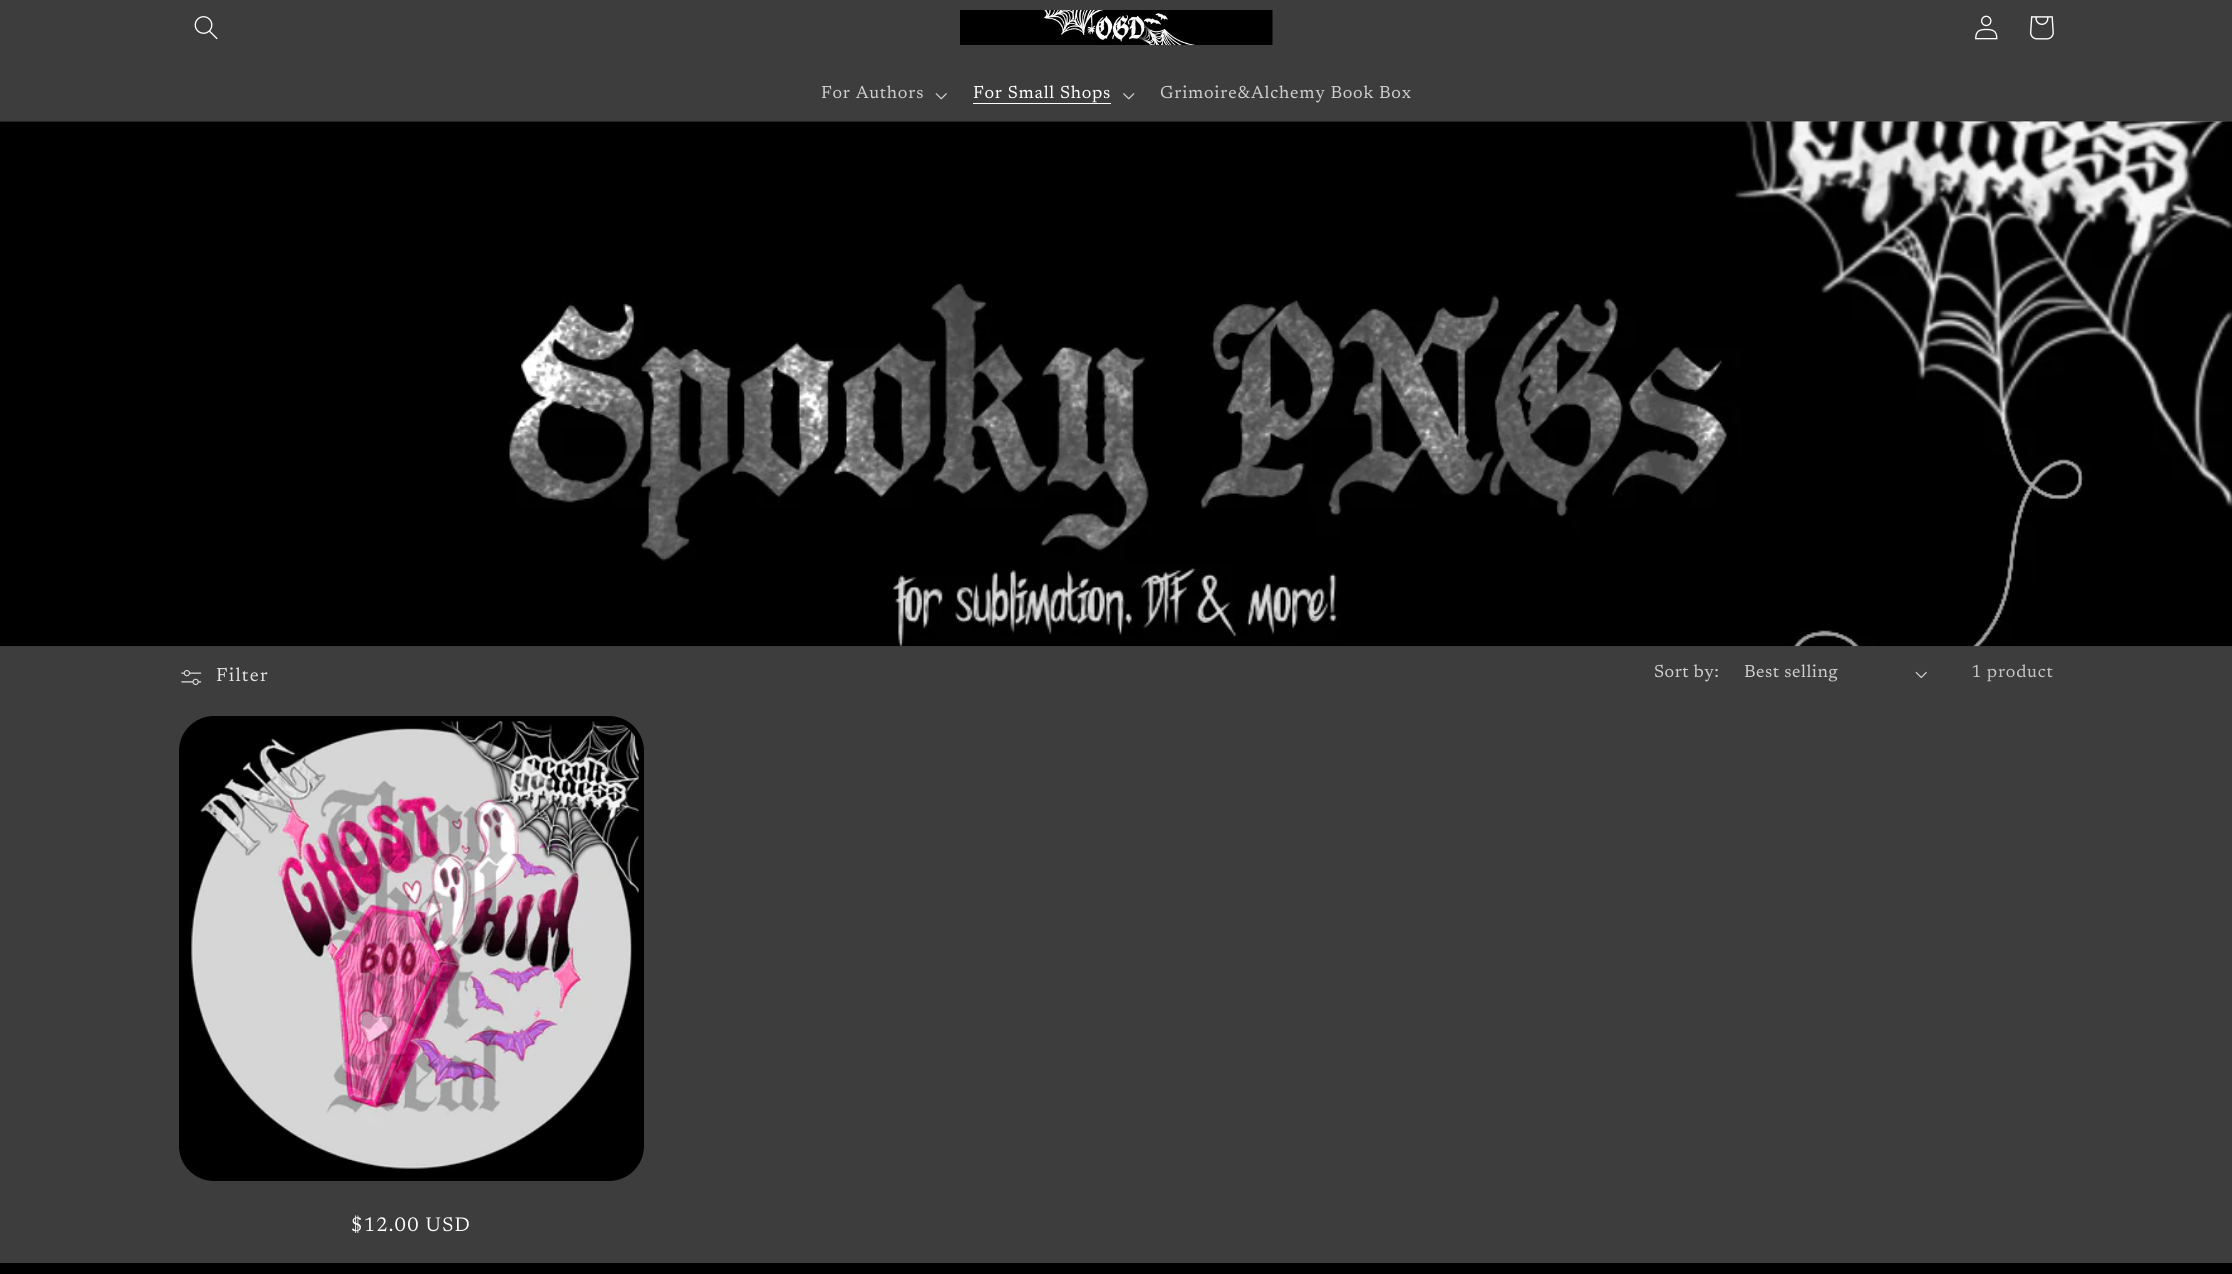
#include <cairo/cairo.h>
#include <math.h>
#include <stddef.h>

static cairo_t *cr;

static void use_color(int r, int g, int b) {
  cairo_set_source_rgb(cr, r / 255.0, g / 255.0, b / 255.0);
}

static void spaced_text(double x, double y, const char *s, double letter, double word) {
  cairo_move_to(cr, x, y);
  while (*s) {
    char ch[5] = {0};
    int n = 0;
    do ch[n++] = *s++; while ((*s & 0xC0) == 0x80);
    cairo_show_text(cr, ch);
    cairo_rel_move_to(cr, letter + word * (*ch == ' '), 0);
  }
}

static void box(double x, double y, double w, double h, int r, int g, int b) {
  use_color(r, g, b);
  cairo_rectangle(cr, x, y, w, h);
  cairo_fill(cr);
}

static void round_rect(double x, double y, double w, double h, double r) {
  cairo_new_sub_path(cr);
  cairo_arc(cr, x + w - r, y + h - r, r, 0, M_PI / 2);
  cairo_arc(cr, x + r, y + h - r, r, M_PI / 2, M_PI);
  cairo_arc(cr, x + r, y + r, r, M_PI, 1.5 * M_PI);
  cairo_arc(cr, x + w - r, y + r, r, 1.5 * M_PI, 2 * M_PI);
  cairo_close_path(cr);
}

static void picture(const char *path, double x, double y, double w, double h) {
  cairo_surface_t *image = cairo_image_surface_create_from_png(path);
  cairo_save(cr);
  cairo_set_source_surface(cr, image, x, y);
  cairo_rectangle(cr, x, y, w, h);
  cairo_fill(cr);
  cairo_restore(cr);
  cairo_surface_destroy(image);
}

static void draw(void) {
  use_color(61, 61, 61);
  cairo_paint(cr);
  picture("img_01.png", 194, 16, 24, 24);
  picture("img_02.png", 960, 10, 313, 35);
  picture("img_03.png", 1975, 15, 23, 25);
  picture("img_04.png", 2030, 16, 24, 24);
  picture("img_05.png", 935, 93, 12, 7);
  box(973, 103, 138, 1, 255, 255, 255);
  picture("img_06.png", 1123, 93, 12, 7);
  box(0, 121, 2232, 1, 80, 80, 80);
  picture("img_07.png", 0, 121, 2232, 526);
  picture("img_08.png", 181, 670, 21, 15);
  picture("img_09.png", 1915, 671, 12, 8);
  use_color(0, 0, 0);
  round_rect(179, 716, 465, 465, 35);
  cairo_fill(cr);
  picture("img_10.png", 189, 721, 450, 450);
  box(0, 1263, 2232, 11, 0, 0, 0);
  cairo_select_font_face(cr, "Newsreader", CAIRO_FONT_SLANT_NORMAL, CAIRO_FONT_WEIGHT_NORMAL);
  cairo_set_font_size(cr, 17.5);
  use_color(207, 207, 207);
  spaced_text(821, 98, "For Authors", 0.75, 0);
  use_color(255, 255, 255);
  spaced_text(973, 98, "For Small Shops", 0.75, 0);
  use_color(207, 207, 207);
  spaced_text(1160, 98, "Grimoire&Alchemy Book Box", 0.75, 0);
  cairo_select_font_face(cr, "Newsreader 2", CAIRO_FONT_SLANT_NORMAL, CAIRO_FONT_WEIGHT_NORMAL);
  cairo_set_font_size(cr, 19);
  use_color(226, 226, 226);
  spaced_text(216, 681, "Filter", 1.25, 0);
  cairo_select_font_face(cr, "Newsreader", CAIRO_FONT_SLANT_NORMAL, CAIRO_FONT_WEIGHT_NORMAL);
  cairo_set_font_size(cr, 17.5);
  use_color(207, 207, 207);
  spaced_text(1654, 677, "Sort by:", 0.5, 0);
  spaced_text(1744, 677, "Best selling", 0.5, 0);
  use_color(197, 197, 197);
  spaced_text(1971, 677, "1 product", 0.75, 0);
  cairo_select_font_face(cr, "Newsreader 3", CAIRO_FONT_SLANT_NORMAL, CAIRO_FONT_WEIGHT_NORMAL);
  cairo_set_font_size(cr, 20);
  use_color(255, 255, 255);
  spaced_text(351, 1231, "$12.00 USD", 1.25, 0);
}

int main(void) {
  cairo_surface_t *surface = cairo_image_surface_create(CAIRO_FORMAT_RGB24, 2232, 1274);
  cr = cairo_create(surface);
  cairo_font_options_t *options = cairo_font_options_create();
  cairo_font_options_set_hint_metrics(options, CAIRO_HINT_METRICS_OFF);
  cairo_font_options_set_hint_style(options, CAIRO_HINT_STYLE_NONE);
  cairo_set_font_options(cr, options);
  cairo_set_miter_limit(cr, 4);
  draw();
  cairo_surface_write_to_png(surface, "out.png");
  cairo_font_options_destroy(options);
  cairo_destroy(cr);
  cairo_surface_destroy(surface);
  return 0;
}
